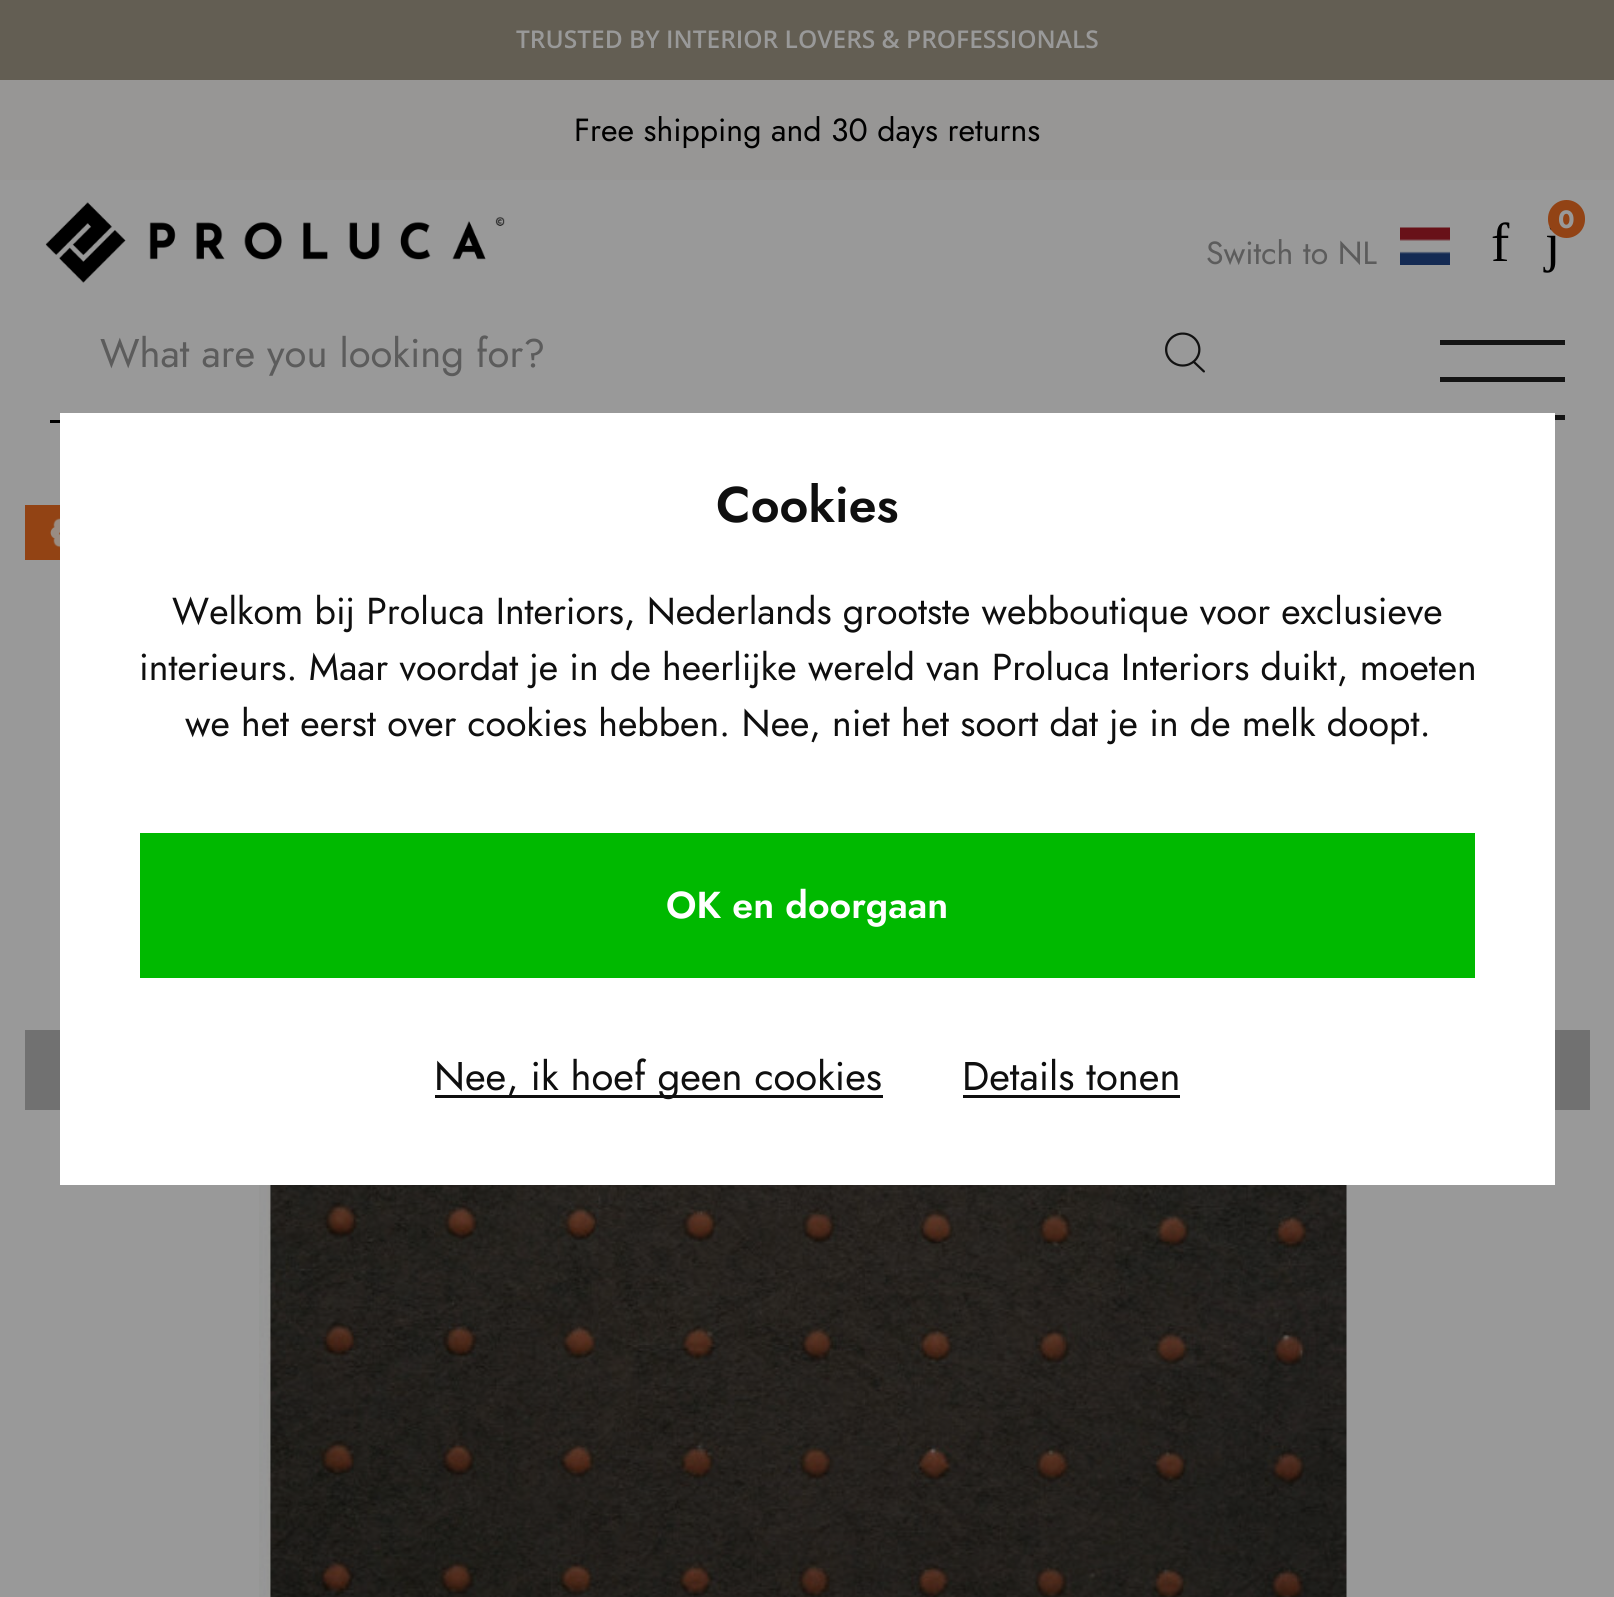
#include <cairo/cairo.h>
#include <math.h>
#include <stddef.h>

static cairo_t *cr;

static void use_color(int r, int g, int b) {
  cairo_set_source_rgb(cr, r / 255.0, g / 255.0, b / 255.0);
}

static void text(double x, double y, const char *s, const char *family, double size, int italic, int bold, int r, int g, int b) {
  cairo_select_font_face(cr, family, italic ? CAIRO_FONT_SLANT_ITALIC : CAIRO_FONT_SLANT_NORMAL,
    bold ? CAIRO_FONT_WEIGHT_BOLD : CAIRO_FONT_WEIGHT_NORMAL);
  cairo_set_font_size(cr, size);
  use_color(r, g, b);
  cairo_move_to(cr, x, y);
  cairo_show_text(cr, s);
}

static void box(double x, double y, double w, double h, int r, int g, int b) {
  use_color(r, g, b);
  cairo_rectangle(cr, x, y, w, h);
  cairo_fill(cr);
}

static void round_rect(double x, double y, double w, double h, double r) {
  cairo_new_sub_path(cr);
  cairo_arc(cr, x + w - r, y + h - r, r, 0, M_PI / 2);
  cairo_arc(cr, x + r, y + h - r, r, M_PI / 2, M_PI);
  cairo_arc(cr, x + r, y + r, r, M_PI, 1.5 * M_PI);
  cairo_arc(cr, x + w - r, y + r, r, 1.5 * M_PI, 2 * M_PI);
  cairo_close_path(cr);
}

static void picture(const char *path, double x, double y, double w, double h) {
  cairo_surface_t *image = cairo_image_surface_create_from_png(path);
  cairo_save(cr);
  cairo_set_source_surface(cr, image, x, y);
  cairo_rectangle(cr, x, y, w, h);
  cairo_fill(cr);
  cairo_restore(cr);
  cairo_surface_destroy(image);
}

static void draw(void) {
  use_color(153, 153, 153);
  cairo_paint(cr);
  box(0, 0, 1614, 80, 99, 94, 83);
  box(0, 80, 1614, 100, 151, 150, 149);
  picture("img_01.png", 45, 202, 460, 81);
  picture("img_02.png", 1400, 227, 50, 38);
  box(50, 420, 10, 3, 0, 0, 0);
  picture("img_03.png", 1165, 332, 40, 41);
  use_color(20, 20, 20);
  cairo_new_path(cr);
  cairo_move_to(cr, 1440, 340);
  cairo_line_to(cr, 1440, 345);
  cairo_line_to(cr, 1565, 345);
  cairo_line_to(cr, 1565, 340);
  cairo_close_path(cr);
  cairo_move_to(cr, 1440, 377);
  cairo_line_to(cr, 1440, 382);
  cairo_line_to(cr, 1565, 382);
  cairo_line_to(cr, 1565, 377);
  cairo_close_path(cr);
  cairo_move_to(cr, 1440, 415);
  cairo_line_to(cr, 1440, 420);
  cairo_line_to(cr, 1565, 420);
  cairo_line_to(cr, 1565, 415);
  cairo_close_path(cr);
  cairo_fill(cr);
  box(60, 413, 1495, 772, 255, 255, 255);
  box(140, 833, 1335, 145, 0, 185, 0);
  box(435, 1095, 448, 3, 15, 15, 15);
  box(963, 1095, 217, 3, 15, 15, 15);
  box(25, 505, 35, 55, 146, 67, 20);
  picture("img_04.png", 50, 518, 10, 30);
  box(25, 1030, 35, 80, 113, 113, 113);
  box(1555, 1030, 35, 80, 113, 113, 113);
  picture("img_05.png", 259, 1185, 1088, 412);
  text(516, 48, "TRUSTED BY INTERIOR LOVERS & PROFESSIONALS", "Open Sans SemiBold", 24.5, 0, 0, 153, 153, 153);
  text(574, 141, "Free shipping and 30 days returns", "Jost", 32, 0, 0, 0, 0, 0);
  text(1206, 264, "Switch to NL", "Jost", 32, 0, 0, 92, 92, 92);
  text(1491, 261, "f", "Liberation Serif", 55, 0, 0, 0, 0, 0);
  text(1545, 261, "j", "Liberation Serif", 55, 0, 0, 0, 0, 0);
  use_color(146, 67, 21);
  round_rect(1548, 200, 37, 38, 18.5);
  cairo_fill(cr);
  text(1558, 228, "0", "Jost", 25, 0, 1, 153, 153, 153);
  text(100, 367, "What are you looking for?", "Jost", 40, 0, 0, 92, 92, 92);
  text(716, 522, "Cookies", "Jost SemiBold", 50, 0, 0, 15, 15, 15);
  text(172, 624, "Welkom bij Proluca Interiors, Nederlands grootste webboutique voor exclusieve", "Jost", 37.5, 0, 0, 15, 15, 15);
  text(139, 680, "interieurs. Maar voordat je in de heerlijke wereld van Proluca Interiors duikt, moeten", "Jost", 37.5, 0, 0, 15, 15, 15);
  text(185, 736, "we het eerst over cookies hebben. Nee, niet het soort dat je in de melk doopt.", "Jost", 37.5, 0, 0, 15, 15, 15);
  text(666, 918, "OK en doorgaan", "Jost SemiBold", 37.5, 0, 0, 255, 255, 255);
  text(434, 1090, "Nee, ik hoef geen cookies", "Jost", 40, 0, 0, 15, 15, 15);
  text(962, 1090, "Details tonen", "Jost", 40, 0, 0, 15, 15, 15);
}

int main(void) {
  cairo_surface_t *surface = cairo_image_surface_create(CAIRO_FORMAT_RGB24, 1614, 1597);
  cr = cairo_create(surface);
  cairo_font_options_t *options = cairo_font_options_create();
  cairo_font_options_set_hint_metrics(options, CAIRO_HINT_METRICS_OFF);
  cairo_font_options_set_hint_style(options, CAIRO_HINT_STYLE_NONE);
  cairo_set_font_options(cr, options);
  cairo_set_miter_limit(cr, 4);
  draw();
  cairo_surface_write_to_png(surface, "out.png");
  cairo_font_options_destroy(options);
  cairo_destroy(cr);
  cairo_surface_destroy(surface);
  return 0;
}
